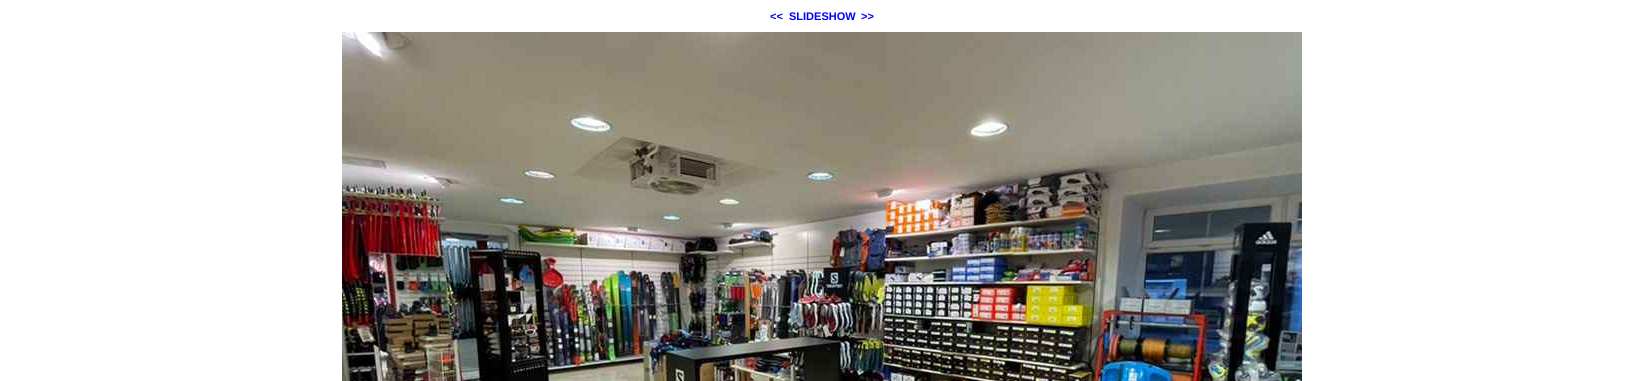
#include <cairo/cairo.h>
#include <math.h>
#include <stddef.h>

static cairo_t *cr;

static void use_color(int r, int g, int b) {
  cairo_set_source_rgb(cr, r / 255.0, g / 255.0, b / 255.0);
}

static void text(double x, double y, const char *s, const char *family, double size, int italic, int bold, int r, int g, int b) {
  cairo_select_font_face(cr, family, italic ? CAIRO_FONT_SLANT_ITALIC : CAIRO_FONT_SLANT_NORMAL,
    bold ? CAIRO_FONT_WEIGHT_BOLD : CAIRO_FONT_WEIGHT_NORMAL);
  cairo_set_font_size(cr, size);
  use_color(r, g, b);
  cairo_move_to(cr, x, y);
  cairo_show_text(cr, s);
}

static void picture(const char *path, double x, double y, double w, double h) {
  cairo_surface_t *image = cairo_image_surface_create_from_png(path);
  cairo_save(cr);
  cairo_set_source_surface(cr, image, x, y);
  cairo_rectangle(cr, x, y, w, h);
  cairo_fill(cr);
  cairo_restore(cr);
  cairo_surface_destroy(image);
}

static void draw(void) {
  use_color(255, 255, 255);
  cairo_paint(cr);
  picture("img_01.png", 342, 32, 960, 349);
  text(770, 20, "<<", "Liberation Sans", 11, 0, 1, 0, 0, 255);
  text(789, 20, "SLIDESHOW", "Liberation Sans", 11, 0, 1, 0, 0, 255);
  text(861, 20, ">>", "Liberation Sans", 11, 0, 1, 0, 0, 255);
}

int main(void) {
  cairo_surface_t *surface = cairo_image_surface_create(CAIRO_FORMAT_RGB24, 1644, 381);
  cr = cairo_create(surface);
  cairo_font_options_t *options = cairo_font_options_create();
  cairo_font_options_set_hint_metrics(options, CAIRO_HINT_METRICS_OFF);
  cairo_font_options_set_hint_style(options, CAIRO_HINT_STYLE_NONE);
  cairo_set_font_options(cr, options);
  cairo_set_miter_limit(cr, 4);
  draw();
  cairo_surface_write_to_png(surface, "out.png");
  cairo_font_options_destroy(options);
  cairo_destroy(cr);
  cairo_surface_destroy(surface);
  return 0;
}
